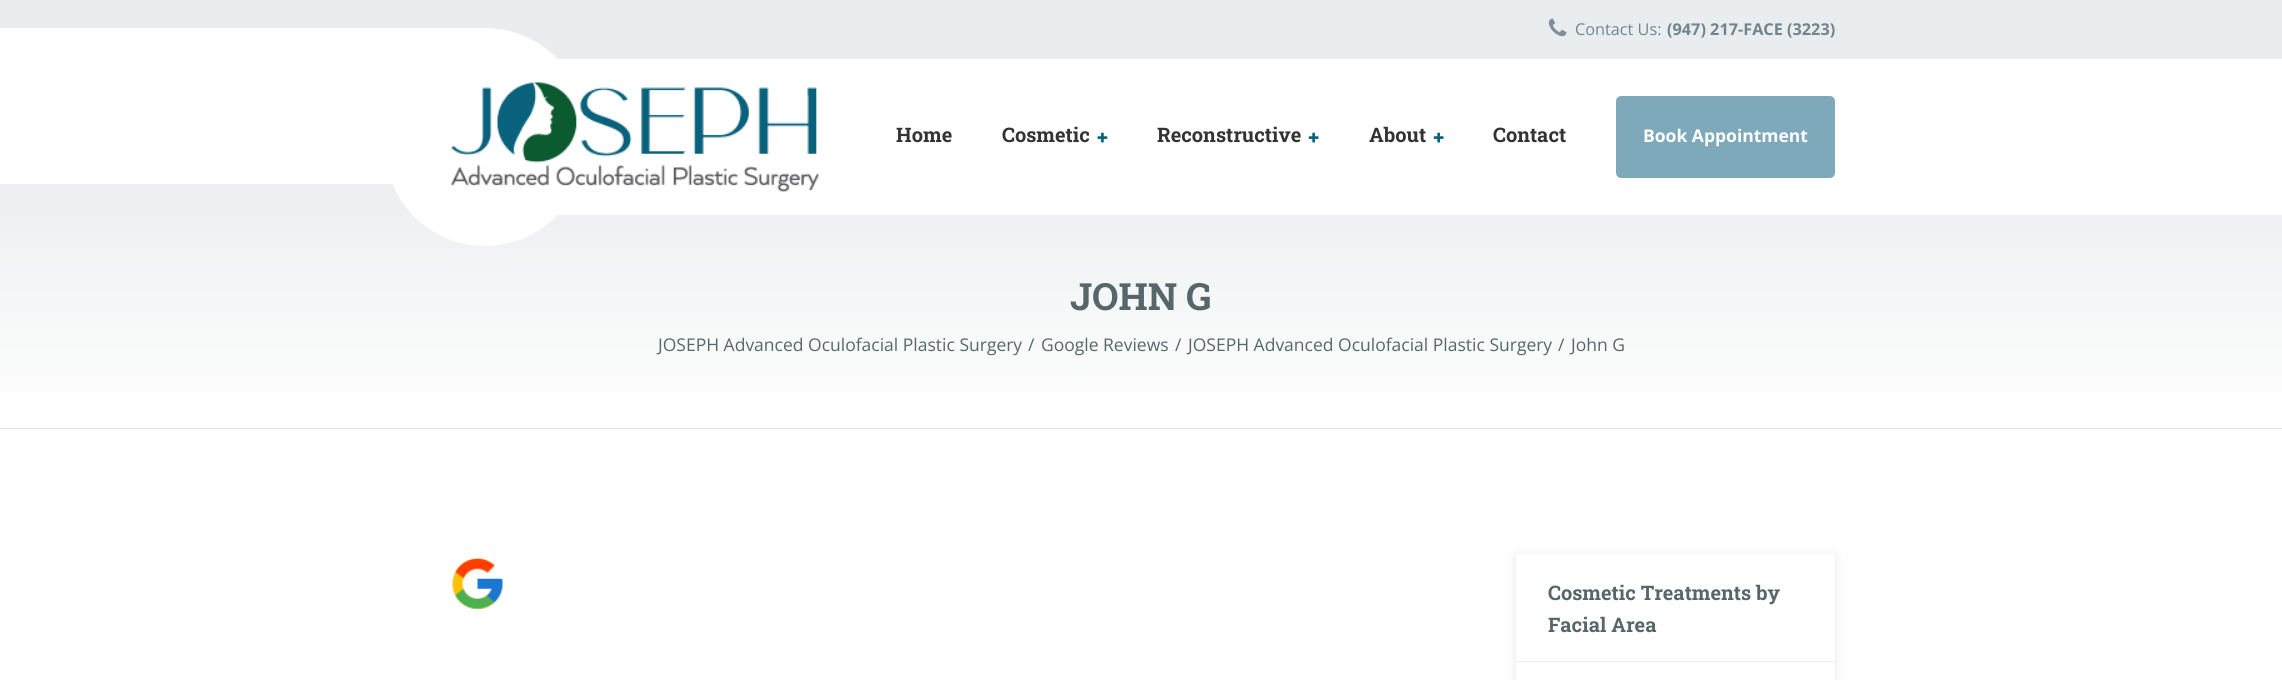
#include <cairo/cairo.h>
#include <math.h>
#include <stddef.h>

static cairo_t *cr;

static void use_color(int r, int g, int b) {
  cairo_set_source_rgb(cr, r / 255.0, g / 255.0, b / 255.0);
}

static void text(double x, double y, const char *s, const char *family, double size, int italic, int bold, int r, int g, int b) {
  cairo_select_font_face(cr, family, italic ? CAIRO_FONT_SLANT_ITALIC : CAIRO_FONT_SLANT_NORMAL,
    bold ? CAIRO_FONT_WEIGHT_BOLD : CAIRO_FONT_WEIGHT_NORMAL);
  cairo_set_font_size(cr, size);
  use_color(r, g, b);
  cairo_move_to(cr, x, y);
  cairo_show_text(cr, s);
}

static void box(double x, double y, double w, double h, int r, int g, int b) {
  use_color(r, g, b);
  cairo_rectangle(cr, x, y, w, h);
  cairo_fill(cr);
}

static void round_rect(double x, double y, double w, double h, double r) {
  cairo_new_sub_path(cr);
  cairo_arc(cr, x + w - r, y + h - r, r, 0, M_PI / 2);
  cairo_arc(cr, x + r, y + h - r, r, M_PI / 2, M_PI);
  cairo_arc(cr, x + r, y + r, r, M_PI, 1.5 * M_PI);
  cairo_arc(cr, x + w - r, y + r, r, 1.5 * M_PI, 2 * M_PI);
  cairo_close_path(cr);
}

static void shadow(double x, double y, double w, double h, double r, double blur, double alpha) {
  cairo_push_group_with_content(cr, CAIRO_CONTENT_ALPHA);
  cairo_set_operator(cr, CAIRO_OPERATOR_SOURCE);
  for (int i = 15; i >= -15 && fmin(w, h) + blur * i / 3 > 0; i -= 2) {
    double e = blur * i / 6;
    cairo_set_source_rgba(cr, 0, 0, 0, alpha * erfc((i - 1) / 8.5) / 2);
    round_rect(x - e, y - e, w + 2 * e, h + 2 * e, fmax(0, fmin(r + e + blur * .6, fmin(w, h) / 2 + e)));
    cairo_fill(cr);
  }
  cairo_pattern_t *soft = cairo_pop_group(cr);
  cairo_mask(cr, soft);
  cairo_pattern_destroy(soft);
}

static void picture(const char *path, double x, double y, double w, double h) {
  cairo_surface_t *image = cairo_image_surface_create_from_png(path);
  cairo_save(cr);
  cairo_set_source_surface(cr, image, x, y);
  cairo_rectangle(cr, x, y, w, h);
  cairo_fill(cr);
  cairo_restore(cr);
  cairo_surface_destroy(image);
}

static void draw(void) {
  cairo_pattern_t *gradient;
  use_color(255, 255, 255);
  cairo_paint(cr);
  box(0, 0, 2282, 59, 233, 237, 240);
  picture("img_01.png", 1548, 18, 19, 19);
  box(0, 28, 484, 31, 255, 255, 255);
  gradient = cairo_pattern_create_linear(1141, 177, 1141, 428);
  cairo_pattern_add_color_stop_rgba(gradient, 0, 0.925, 0.933, 0.937, 1);
  cairo_pattern_add_color_stop_rgba(gradient, 1, 1, 1, 1, 1);
  cairo_set_source(cr, gradient);
  cairo_pattern_destroy(gradient);
  cairo_rectangle(cr, 0, 184, 2282, 211);
  cairo_fill(cr);
  box(557, 184, 1725, 31, 255, 255, 255);
  cairo_arc(cr, 485, 128, 100, 0, 2 * M_PI);
  cairo_fill(cr);
  cairo_arc(cr, 485, 146, 100, 0, 2 * M_PI);
  cairo_fill(cr);
  picture("img_02.png", 451, 82, 368, 110);
  picture("img_03.png", 1097, 132, 11, 11);
  picture("img_04.png", 1308, 132, 11, 11);
  picture("img_04.png", 1433, 132, 11, 11);
  use_color(126, 169, 186);
  round_rect(1617.5, 97.5, 216, 79, 3.5);
  cairo_fill_preserve(cr);
  cairo_set_line_width(cr, 3);
  cairo_stroke(cr);
  box(0, 428, 2282, 1, 229, 229, 229);
  picture("img_05.png", 452, 558, 51, 51);
  use_color(0, 0, 0);
  shadow(1516, 555, 319, 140, 0, 5, 0.1);
  box(1516, 554, 319, 126, 255, 255, 255);
  box(1516, 661, 319, 1, 236, 238, 239);
  text(1575, 35, "Contact Us:", "Open Sans", 16.25, 0, 0, 114, 133, 138);
  text(1667, 35, "(947) 217-FACE (3223)", "Open Sans", 16.25, 0, 1, 114, 133, 138);
  text(896, 142, "Home", "Roboto Slab", 20, 0, 1, 51, 51, 51);
  text(1002, 142, "Cosmetic", "Roboto Slab", 20, 0, 1, 51, 51, 51);
  text(1157, 142, "Reconstructive", "Roboto Slab", 20, 0, 1, 51, 51, 51);
  text(1369, 142, "About", "Roboto Slab", 20, 0, 1, 51, 51, 51);
  text(1493, 142, "Contact", "Roboto Slab", 20, 0, 1, 51, 51, 51);
  text(1643, 142, "Book Appointment", "Open Sans", 17.5, 0, 1, 255, 255, 255);
  text(1070, 310, "JOHN G", "Roboto Slab", 37.5, 0, 1, 86, 103, 107);
  text(658, 351, "JOSEPH Advanced Oculofacial Plastic Surgery", "Open Sans", 17.5, 0, 0, 86, 103, 107);
  text(1028, 351, "/", "Open Sans", 17.5, 0, 0, 86, 103, 107);
  text(1041, 351, "Google Reviews", "Open Sans", 17.5, 0, 0, 86, 103, 107);
  text(1175, 351, "/", "Open Sans", 17.5, 0, 0, 86, 103, 107);
  text(1188, 351, "JOSEPH Advanced Oculofacial Plastic Surgery", "Open Sans", 17.5, 0, 0, 86, 103, 107);
  text(1558, 351, "/", "Open Sans", 17.5, 0, 0, 86, 103, 107);
  text(1571, 351, "John G", "Open Sans", 17.5, 0, 0, 86, 103, 107);
  text(1548, 600, "Cosmetic Treatments by", "Roboto Slab", 20, 0, 1, 86, 103, 107);
  text(1548, 632, "Facial Area", "Roboto Slab", 20, 0, 1, 86, 103, 107);
}

int main(void) {
  cairo_surface_t *surface = cairo_image_surface_create(CAIRO_FORMAT_RGB24, 2282, 680);
  cr = cairo_create(surface);
  cairo_font_options_t *options = cairo_font_options_create();
  cairo_font_options_set_hint_metrics(options, CAIRO_HINT_METRICS_OFF);
  cairo_font_options_set_hint_style(options, CAIRO_HINT_STYLE_NONE);
  cairo_set_font_options(cr, options);
  cairo_set_miter_limit(cr, 4);
  draw();
  cairo_surface_write_to_png(surface, "out.png");
  cairo_font_options_destroy(options);
  cairo_destroy(cr);
  cairo_surface_destroy(surface);
  return 0;
}
